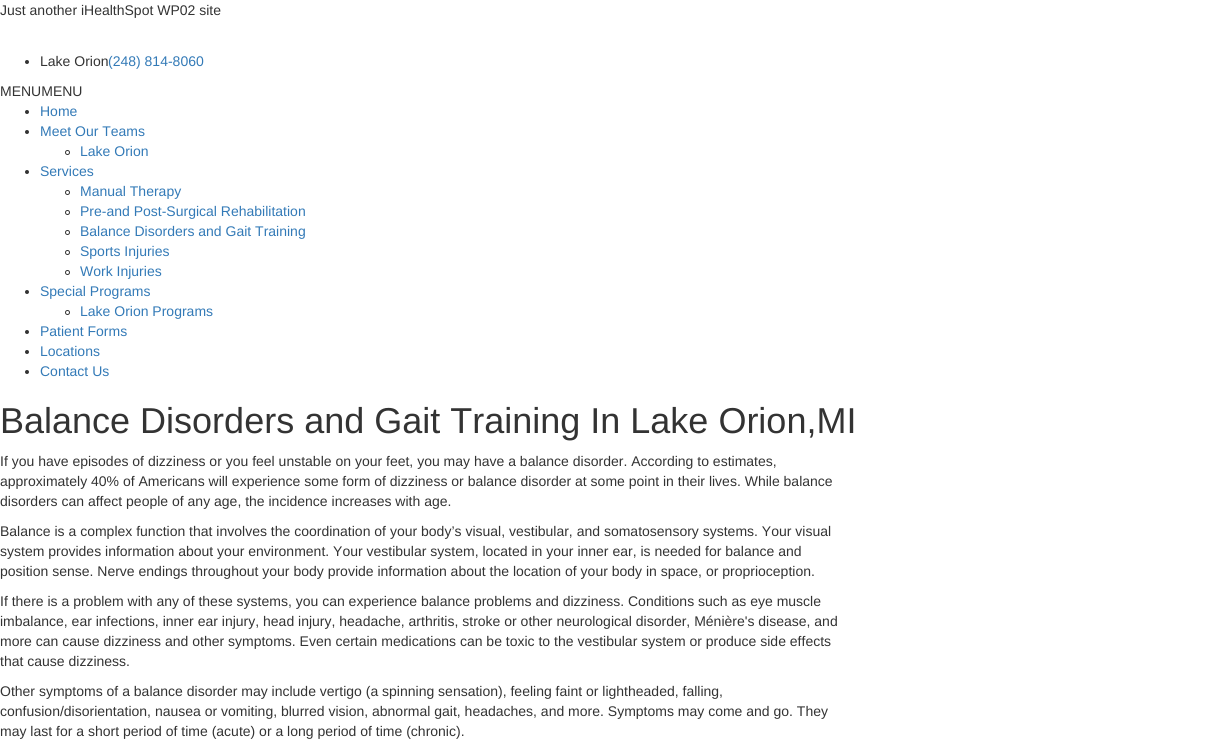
#include <cairo/cairo.h>
#include <math.h>
#include <stddef.h>

static cairo_t *cr;

static void use_color(int r, int g, int b) {
  cairo_set_source_rgb(cr, r / 255.0, g / 255.0, b / 255.0);
}

static void text(double x, double y, const char *s, const char *family, double size, int italic, int bold, int r, int g, int b) {
  cairo_select_font_face(cr, family, italic ? CAIRO_FONT_SLANT_ITALIC : CAIRO_FONT_SLANT_NORMAL,
    bold ? CAIRO_FONT_WEIGHT_BOLD : CAIRO_FONT_WEIGHT_NORMAL);
  cairo_set_font_size(cr, size);
  use_color(r, g, b);
  cairo_move_to(cr, x, y);
  cairo_show_text(cr, s);
}

static void draw(void) {
  use_color(255, 255, 255);
  cairo_paint(cr);
  use_color(51, 51, 51);
  cairo_arc(cr, 27, 62, 2, 0, 2 * M_PI);
  cairo_fill(cr);
  cairo_arc(cr, 27, 112, 2, 0, 2 * M_PI);
  cairo_fill(cr);
  cairo_arc(cr, 27, 132, 2, 0, 2 * M_PI);
  cairo_fill(cr);
  cairo_arc(cr, 67.5, 152.5, 2, 0, 2 * M_PI);
  cairo_set_line_width(cr, 1);
  cairo_stroke(cr);
  cairo_arc(cr, 27, 172, 2, 0, 2 * M_PI);
  cairo_fill(cr);
  cairo_arc(cr, 67.5, 192.5, 2, 0, 2 * M_PI);
  cairo_stroke(cr);
  cairo_arc(cr, 67.5, 212.5, 2, 0, 2 * M_PI);
  cairo_stroke(cr);
  cairo_arc(cr, 67.5, 232.5, 2, 0, 2 * M_PI);
  cairo_stroke(cr);
  cairo_arc(cr, 67.5, 252.5, 2, 0, 2 * M_PI);
  cairo_stroke(cr);
  cairo_arc(cr, 67.5, 272.5, 2, 0, 2 * M_PI);
  cairo_stroke(cr);
  cairo_arc(cr, 27, 292, 2, 0, 2 * M_PI);
  cairo_fill(cr);
  cairo_arc(cr, 67.5, 312.5, 2, 0, 2 * M_PI);
  cairo_stroke(cr);
  cairo_arc(cr, 27, 332, 2, 0, 2 * M_PI);
  cairo_fill(cr);
  cairo_arc(cr, 27, 352, 2, 0, 2 * M_PI);
  cairo_fill(cr);
  cairo_arc(cr, 27, 372, 2, 0, 2 * M_PI);
  cairo_fill(cr);
  text(0, 15, "Just another iHealthSpot WP02 site", "Liberation Sans", 14, 0, 0, 51, 51, 51);
  text(40, 66, "Lake Orion", "Liberation Sans", 14, 0, 0, 51, 51, 51);
  text(108, 66, "(248) 814-8060", "Liberation Sans", 14, 0, 0, 51, 122, 183);
  text(0, 96, "MENUMENU", "Liberation Sans", 14, 0, 0, 51, 51, 51);
  text(40, 116, "Home", "Liberation Sans", 14, 0, 0, 51, 122, 183);
  text(40, 136, "Meet Our Teams", "Liberation Sans", 14, 0, 0, 51, 122, 183);
  text(80, 156, "Lake Orion", "Liberation Sans", 14, 0, 0, 51, 122, 183);
  text(40, 176, "Services", "Liberation Sans", 14, 0, 0, 51, 122, 183);
  text(80, 196, "Manual Therapy", "Liberation Sans", 14, 0, 0, 51, 122, 183);
  text(80, 216, "Pre-and Post-Surgical Rehabilitation", "Liberation Sans", 14, 0, 0, 51, 122, 183);
  text(80, 236, "Balance Disorders and Gait Training", "Liberation Sans", 14, 0, 0, 51, 122, 183);
  text(80, 256, "Sports Injuries", "Liberation Sans", 14, 0, 0, 51, 122, 183);
  text(80, 276, "Work Injuries", "Liberation Sans", 14, 0, 0, 51, 122, 183);
  text(40, 296, "Special Programs", "Liberation Sans", 14, 0, 0, 51, 122, 183);
  text(80, 316, "Lake Orion Programs", "Liberation Sans", 14, 0, 0, 51, 122, 183);
  text(40, 336, "Patient Forms", "Liberation Sans", 14, 0, 0, 51, 122, 183);
  text(40, 356, "Locations", "Liberation Sans", 14, 0, 0, 51, 122, 183);
  text(40, 376, "Contact Us", "Liberation Sans", 14, 0, 0, 51, 122, 183);
  text(0, 433, "Balance Disorders and Gait Training In Lake Orion,MI", "Liberation Sans", 36, 0, 0, 51, 51, 51);
  text(0, 466, "If you have episodes of dizziness or you feel unstable on your feet, you may have a balance disorder. According to estimates,", "Liberation Sans", 14, 0, 0, 51, 51, 51);
  text(0, 486, "approximately 40% of Americans will experience some form of dizziness or balance disorder at some point in their lives. While balance", "Liberation Sans", 14, 0, 0, 51, 51, 51);
  text(0, 506, "disorders can affect people of any age, the incidence increases with age.", "Liberation Sans", 14, 0, 0, 51, 51, 51);
  text(0, 536, "Balance is a complex function that involves the coordination of your body’s visual, vestibular, and somatosensory systems. Your visual", "Liberation Sans", 14, 0, 0, 51, 51, 51);
  text(0, 556, "system provides information about your environment. Your vestibular system, located in your inner ear, is needed for balance and", "Liberation Sans", 14, 0, 0, 51, 51, 51);
  text(0, 576, "position sense. Nerve endings throughout your body provide information about the location of your body in space, or proprioception.", "Liberation Sans", 14, 0, 0, 51, 51, 51);
  text(0, 606, "If there is a problem with any of these systems, you can experience balance problems and dizziness. Conditions such as eye muscle", "Liberation Sans", 14, 0, 0, 51, 51, 51);
  text(0, 626, "imbalance, ear infections, inner ear injury, head injury, headache, arthritis, stroke or other neurological disorder, Ménière's disease, and", "Liberation Sans", 14, 0, 0, 51, 51, 51);
  text(0, 646, "more can cause dizziness and other symptoms. Even certain medications can be toxic to the vestibular system or produce side effects", "Liberation Sans", 14, 0, 0, 51, 51, 51);
  text(0, 666, "that cause dizziness.", "Liberation Sans", 14, 0, 0, 51, 51, 51);
  text(0, 696, "Other symptoms of a balance disorder may include vertigo (a spinning sensation), feeling faint or lightheaded, falling,", "Liberation Sans", 14, 0, 0, 51, 51, 51);
  text(0, 716, "confusion/disorientation, nausea or vomiting, blurred vision, abnormal gait, headaches, and more. Symptoms may come and go. They", "Liberation Sans", 14, 0, 0, 51, 51, 51);
  text(0, 736, "may last for a short period of time (acute) or a long period of time (chronic).", "Liberation Sans", 14, 0, 0, 51, 51, 51);
}

int main(void) {
  cairo_surface_t *surface = cairo_image_surface_create(CAIRO_FORMAT_RGB24, 1215, 756);
  cr = cairo_create(surface);
  cairo_font_options_t *options = cairo_font_options_create();
  cairo_font_options_set_hint_metrics(options, CAIRO_HINT_METRICS_OFF);
  cairo_font_options_set_hint_style(options, CAIRO_HINT_STYLE_NONE);
  cairo_set_font_options(cr, options);
  cairo_set_miter_limit(cr, 4);
  draw();
  cairo_surface_write_to_png(surface, "out.png");
  cairo_font_options_destroy(options);
  cairo_destroy(cr);
  cairo_surface_destroy(surface);
  return 0;
}
